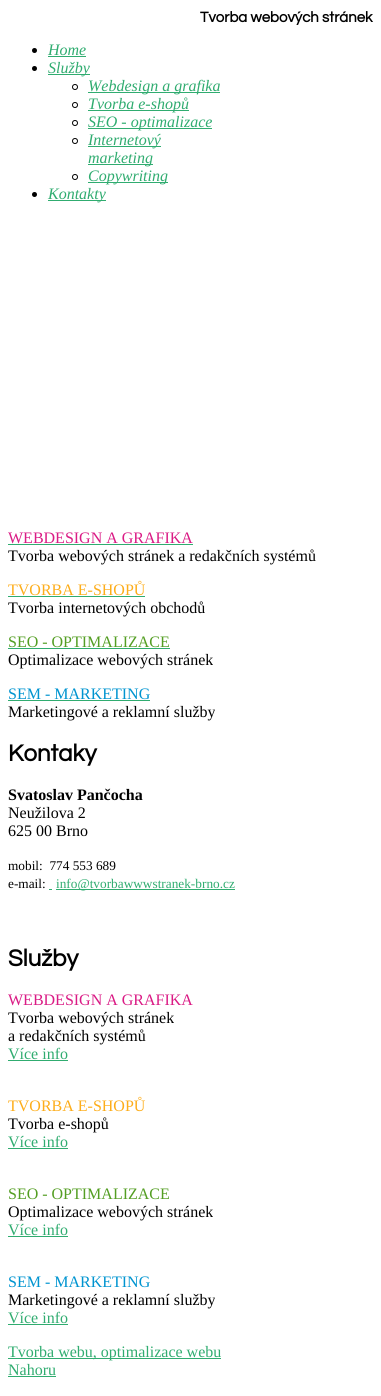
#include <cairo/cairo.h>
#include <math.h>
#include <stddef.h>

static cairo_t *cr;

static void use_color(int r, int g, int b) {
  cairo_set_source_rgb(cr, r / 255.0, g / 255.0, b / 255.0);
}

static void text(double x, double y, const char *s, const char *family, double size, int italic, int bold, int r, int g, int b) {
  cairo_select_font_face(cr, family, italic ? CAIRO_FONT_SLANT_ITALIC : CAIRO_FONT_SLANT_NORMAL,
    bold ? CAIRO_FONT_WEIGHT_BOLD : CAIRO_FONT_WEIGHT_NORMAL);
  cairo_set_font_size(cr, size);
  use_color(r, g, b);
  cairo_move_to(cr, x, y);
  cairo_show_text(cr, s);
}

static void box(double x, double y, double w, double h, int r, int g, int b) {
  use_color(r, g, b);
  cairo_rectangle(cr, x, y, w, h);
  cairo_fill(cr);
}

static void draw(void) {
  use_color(255, 255, 255);
  cairo_paint(cr);
  use_color(0, 0, 0);
  cairo_arc(cr, 34.5, 50.5, 2.5, 0, 2 * M_PI);
  cairo_fill(cr);
  box(48, 56, 38, 1, 48, 172, 112);
  use_color(0, 0, 0);
  cairo_arc(cr, 34.5, 68.5, 2.5, 0, 2 * M_PI);
  cairo_fill(cr);
  box(48, 74, 42, 1, 48, 172, 112);
  cairo_arc(cr, 75, 87, 2.5, 0, 2 * M_PI);
  use_color(0, 0, 0);
  cairo_set_line_width(cr, 1);
  cairo_stroke(cr);
  box(88, 92, 132, 1, 48, 172, 112);
  cairo_arc(cr, 75, 105, 2.5, 0, 2 * M_PI);
  use_color(0, 0, 0);
  cairo_stroke(cr);
  box(88, 110, 101, 1, 48, 172, 112);
  cairo_arc(cr, 75, 123, 2.5, 0, 2 * M_PI);
  use_color(0, 0, 0);
  cairo_stroke(cr);
  box(88, 128, 124, 1, 48, 172, 112);
  cairo_arc(cr, 75, 141, 2.5, 0, 2 * M_PI);
  use_color(0, 0, 0);
  cairo_stroke(cr);
  box(88, 146, 73, 1, 48, 172, 112);
  box(88, 164, 65, 1, 48, 172, 112);
  cairo_arc(cr, 75, 177, 2.5, 0, 2 * M_PI);
  use_color(0, 0, 0);
  cairo_stroke(cr);
  box(88, 182, 80, 1, 48, 172, 112);
  use_color(0, 0, 0);
  cairo_arc(cr, 34.5, 194.5, 2.5, 0, 2 * M_PI);
  cairo_fill(cr);
  box(48, 200, 58, 1, 48, 172, 112);
  box(8, 544, 185, 1, 48, 172, 112);
  box(8, 596, 137, 1, 48, 172, 112);
  box(8, 648, 162, 1, 48, 172, 112);
  box(8, 700, 142, 1, 48, 172, 112);
  box(49, 889, 3, 1, 48, 172, 112);
  box(56, 889, 179, 1, 48, 172, 112);
  box(8, 1060, 60, 1, 48, 172, 112);
  box(8, 1148, 60, 1, 48, 172, 112);
  box(8, 1236, 60, 1, 48, 172, 112);
  box(8, 1324, 60, 1, 48, 172, 112);
  box(8, 1358, 213, 1, 48, 172, 112);
  box(8, 1376, 48, 1, 48, 172, 112);
  text(200, 22, "Tvorba webových stránek", "Questrial", 15, 0, 1, 0, 0, 0);
  text(48, 55, "Home", "Liberation Serif", 16, 1, 0, 48, 172, 112);
  text(48, 73, "Služby", "Liberation Serif", 16, 1, 0, 48, 172, 112);
  text(88, 91, "Webdesign a grafika", "Liberation Serif", 16, 1, 0, 48, 172, 112);
  text(88, 109, "Tvorba e-shopů", "Liberation Serif", 16, 1, 0, 48, 172, 112);
  text(88, 127, "SEO - optimalizace", "Liberation Serif", 16, 1, 0, 48, 172, 112);
  text(88, 145, "Internetový", "Liberation Serif", 16, 1, 0, 48, 172, 112);
  text(88, 163, "marketing", "Liberation Serif", 16, 1, 0, 48, 172, 112);
  text(88, 181, "Copywriting", "Liberation Serif", 16, 1, 0, 48, 172, 112);
  text(48, 199, "Kontakty", "Liberation Serif", 16, 1, 0, 48, 172, 112);
  text(8, 543, "WEBDESIGN A GRAFIKA", "Liberation Serif", 16, 0, 0, 218, 27, 133);
  text(8, 561, "Tvorba webových stránek a redakčních systémů", "Liberation Serif", 16, 0, 0, 0, 0, 0);
  text(8, 595, "TVORBA E-SHOPŮ", "Liberation Serif", 16, 0, 0, 253, 173, 26);
  text(8, 613, "Tvorba internetových obchodů", "Liberation Serif", 16, 0, 0, 0, 0, 0);
  text(8, 647, "SEO - OPTIMALIZACE", "Liberation Serif", 16, 0, 0, 84, 158, 35);
  text(8, 665, "Optimalizace webových stránek", "Liberation Serif", 16, 0, 0, 0, 0, 0);
  text(8, 699, "SEM - MARKETING", "Liberation Serif", 16, 0, 0, 0, 148, 208);
  text(8, 717, "Marketingové a reklamní služby", "Liberation Serif", 16, 0, 0, 0, 0, 0);
  text(8, 761, "Kontaky", "Questrial", 24, 0, 1, 0, 0, 0);
  text(8, 800, "Svatoslav Pančocha", "Liberation Serif", 16, 0, 1, 0, 0, 0);
  text(8, 818, "Neužilova 2", "Liberation Serif", 16, 0, 0, 0, 0, 0);
  text(8, 836, "625 00 Brno", "Liberation Serif", 16, 0, 0, 0, 0, 0);
  text(8, 870, "mobil:  774 553 689", "Liberation Serif", 13.3, 0, 0, 0, 0, 0);
  text(8, 888, "e-mail:", "Liberation Serif", 13.3, 0, 0, 0, 0, 0);
  text(56, 888, "info@tvorbawwwstranek-brno.cz", "Liberation Serif", 13.3, 0, 0, 48, 172, 112);
  text(8, 966, "Služby", "Questrial", 24, 0, 1, 0, 0, 0);
  text(8, 1005, "WEBDESIGN A GRAFIKA", "Liberation Serif", 16, 0, 0, 218, 27, 133);
  text(8, 1023, "Tvorba webových stránek", "Liberation Serif", 16, 0, 0, 0, 0, 0);
  text(8, 1041, "a redakčních systémů", "Liberation Serif", 16, 0, 0, 0, 0, 0);
  text(8, 1059, "Více info", "Liberation Serif", 16, 0, 0, 48, 172, 112);
  text(8, 1111, "TVORBA E-SHOPŮ", "Liberation Serif", 16, 0, 0, 253, 173, 26);
  text(8, 1129, "Tvorba e-shopů", "Liberation Serif", 16, 0, 0, 0, 0, 0);
  text(8, 1147, "Více info", "Liberation Serif", 16, 0, 0, 48, 172, 112);
  text(8, 1199, "SEO - OPTIMALIZACE", "Liberation Serif", 16, 0, 0, 84, 158, 35);
  text(8, 1217, "Optimalizace webových stránek", "Liberation Serif", 16, 0, 0, 0, 0, 0);
  text(8, 1235, "Více info", "Liberation Serif", 16, 0, 0, 48, 172, 112);
  text(8, 1287, "SEM - MARKETING", "Liberation Serif", 16, 0, 0, 0, 148, 208);
  text(8, 1305, "Marketingové a reklamní služby", "Liberation Serif", 16, 0, 0, 0, 0, 0);
  text(8, 1323, "Více info", "Liberation Serif", 16, 0, 0, 48, 172, 112);
  text(8, 1357, "Tvorba webu, optimalizace webu", "Liberation Serif", 16, 0, 0, 48, 172, 112);
  text(8, 1375, "Nahoru", "Liberation Serif", 16, 0, 0, 48, 172, 112);
}

int main(void) {
  cairo_surface_t *surface = cairo_image_surface_create(CAIRO_FORMAT_RGB24, 381, 1396);
  cr = cairo_create(surface);
  cairo_font_options_t *options = cairo_font_options_create();
  cairo_font_options_set_hint_metrics(options, CAIRO_HINT_METRICS_OFF);
  cairo_font_options_set_hint_style(options, CAIRO_HINT_STYLE_NONE);
  cairo_set_font_options(cr, options);
  cairo_set_miter_limit(cr, 4);
  draw();
  cairo_surface_write_to_png(surface, "out.png");
  cairo_font_options_destroy(options);
  cairo_destroy(cr);
  cairo_surface_destroy(surface);
  return 0;
}
